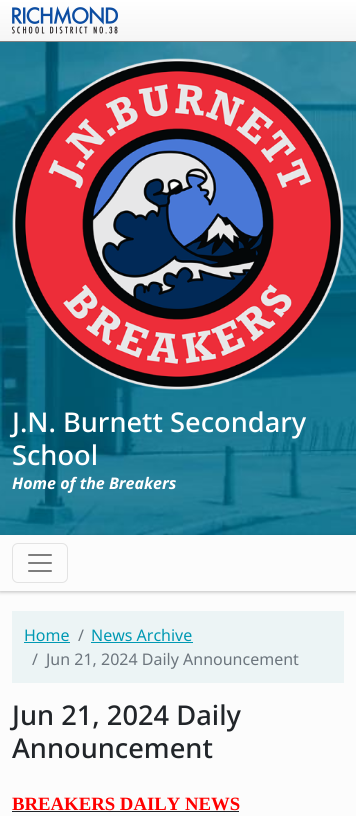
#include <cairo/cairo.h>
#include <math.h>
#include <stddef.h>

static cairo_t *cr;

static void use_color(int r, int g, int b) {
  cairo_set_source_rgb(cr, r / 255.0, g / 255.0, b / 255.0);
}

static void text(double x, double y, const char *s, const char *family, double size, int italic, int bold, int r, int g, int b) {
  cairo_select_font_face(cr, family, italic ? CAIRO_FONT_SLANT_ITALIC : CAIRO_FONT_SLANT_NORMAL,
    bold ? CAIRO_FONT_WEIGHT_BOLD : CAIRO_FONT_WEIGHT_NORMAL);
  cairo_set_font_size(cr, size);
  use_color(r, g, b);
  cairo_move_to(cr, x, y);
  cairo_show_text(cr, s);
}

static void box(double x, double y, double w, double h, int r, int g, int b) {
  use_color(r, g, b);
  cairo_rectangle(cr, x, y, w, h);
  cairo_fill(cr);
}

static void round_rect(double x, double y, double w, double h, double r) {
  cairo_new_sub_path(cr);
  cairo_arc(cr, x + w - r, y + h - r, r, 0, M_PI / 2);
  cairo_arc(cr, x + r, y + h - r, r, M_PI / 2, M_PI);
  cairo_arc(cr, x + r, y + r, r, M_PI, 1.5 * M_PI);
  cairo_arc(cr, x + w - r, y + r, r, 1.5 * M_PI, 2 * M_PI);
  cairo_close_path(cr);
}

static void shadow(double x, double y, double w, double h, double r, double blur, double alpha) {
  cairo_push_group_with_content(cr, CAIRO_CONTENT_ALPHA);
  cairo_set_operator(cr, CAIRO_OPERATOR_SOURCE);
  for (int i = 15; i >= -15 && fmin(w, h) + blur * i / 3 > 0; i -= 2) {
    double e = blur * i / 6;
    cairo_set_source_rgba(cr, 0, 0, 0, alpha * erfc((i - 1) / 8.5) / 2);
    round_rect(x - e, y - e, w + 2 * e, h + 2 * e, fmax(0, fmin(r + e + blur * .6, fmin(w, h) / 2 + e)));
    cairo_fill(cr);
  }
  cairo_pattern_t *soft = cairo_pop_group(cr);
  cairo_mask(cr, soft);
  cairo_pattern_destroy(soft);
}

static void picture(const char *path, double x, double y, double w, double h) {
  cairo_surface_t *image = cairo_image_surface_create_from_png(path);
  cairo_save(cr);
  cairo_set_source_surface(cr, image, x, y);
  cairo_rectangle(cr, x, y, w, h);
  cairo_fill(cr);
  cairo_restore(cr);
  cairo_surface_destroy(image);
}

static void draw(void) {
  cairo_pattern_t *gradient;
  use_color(252, 252, 252);
  cairo_paint(cr);
  gradient = cairo_pattern_create_linear(178, 0, 178, 41);
  cairo_pattern_add_color_stop_rgba(gradient, 0, 1, 1, 1, 1);
  cairo_pattern_add_color_stop_rgba(gradient, 1, 0.961, 0.961, 0.961, 1);
  cairo_set_source(cr, gradient);
  cairo_pattern_destroy(gradient);
  cairo_rectangle(cr, 0, 0, 356, 41);
  cairo_fill(cr);
  box(0, 41, 356, 1, 128, 128, 128);
  picture("img_01.png", 12, 6, 106, 28);
  picture("img_02.png", 0, 42, 356, 493);
  picture("img_03.png", 12, 58, 332, 332);
  cairo_save(cr);
  cairo_set_fill_rule(cr, CAIRO_FILL_RULE_EVEN_ODD);
  cairo_new_path(cr);
  cairo_move_to(cr, 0, 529);
  cairo_line_to(cr, 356, 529);
  cairo_line_to(cr, 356, 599);
  cairo_line_to(cr, 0, 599);
  cairo_close_path(cr);
  cairo_move_to(cr, 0, 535);
  cairo_line_to(cr, 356, 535);
  cairo_line_to(cr, 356, 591);
  cairo_line_to(cr, 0, 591);
  cairo_close_path(cr);
  cairo_clip(cr);
  use_color(0, 0, 0);
  shadow(0, 536, 356, 56, 0, 2, 0.25);
  cairo_restore(cr);
  round_rect(12.5, 543.5, 55, 39, 5.5);
  use_color(227, 227, 227);
  cairo_set_line_width(cr, 1);
  cairo_stroke(cr);
  picture("img_04.png", 28, 554, 24, 18);
  box(12, 611, 332, 72, 236, 244, 245);
  box(24, 642, 46, 1, 0, 153, 179);
  box(91, 642, 102, 1, 0, 153, 179);
  box(12, 811, 227, 1, 33, 37, 41);
  text(12, 432, "J.N. Burnett Secondary", "Noto Sans Medium", 27.25, 0, 0, 255, 255, 255);
  text(12, 465, "School", "Noto Sans Medium", 27.25, 0, 0, 255, 255, 255);
  text(12, 489, "Home of the Breakers", "Noto Sans", 16, 1, 1, 255, 255, 255);
  text(24, 641, "Home", "Noto Sans", 16, 0, 0, 0, 153, 179);
  text(78, 641, "/", "Noto Sans", 16, 0, 0, 108, 117, 125);
  text(91, 641, "News Archive", "Noto Sans", 16, 0, 0, 0, 153, 179);
  text(32, 665, "/", "Noto Sans", 16, 0, 0, 108, 117, 125);
  text(46, 665, "Jun 21, 2024 Daily Announcement", "Noto Sans", 16, 0, 0, 108, 117, 125);
  text(12, 725, "Jun 21, 2024 Daily", "Noto Sans Medium", 27.25, 0, 0, 33, 37, 41);
  text(12, 758, "Announcement", "Noto Sans Medium", 27.25, 0, 0, 33, 37, 41);
  text(12, 810, "BREAKERS DAILY NEWS", "Liberation Serif", 18.75, 0, 1, 255, 0, 0);
}

int main(void) {
  cairo_surface_t *surface = cairo_image_surface_create(CAIRO_FORMAT_RGB24, 356, 816);
  cr = cairo_create(surface);
  cairo_font_options_t *options = cairo_font_options_create();
  cairo_font_options_set_hint_metrics(options, CAIRO_HINT_METRICS_OFF);
  cairo_font_options_set_hint_style(options, CAIRO_HINT_STYLE_NONE);
  cairo_set_font_options(cr, options);
  cairo_set_miter_limit(cr, 4);
  draw();
  cairo_surface_write_to_png(surface, "out.png");
  cairo_font_options_destroy(options);
  cairo_destroy(cr);
  cairo_surface_destroy(surface);
  return 0;
}
